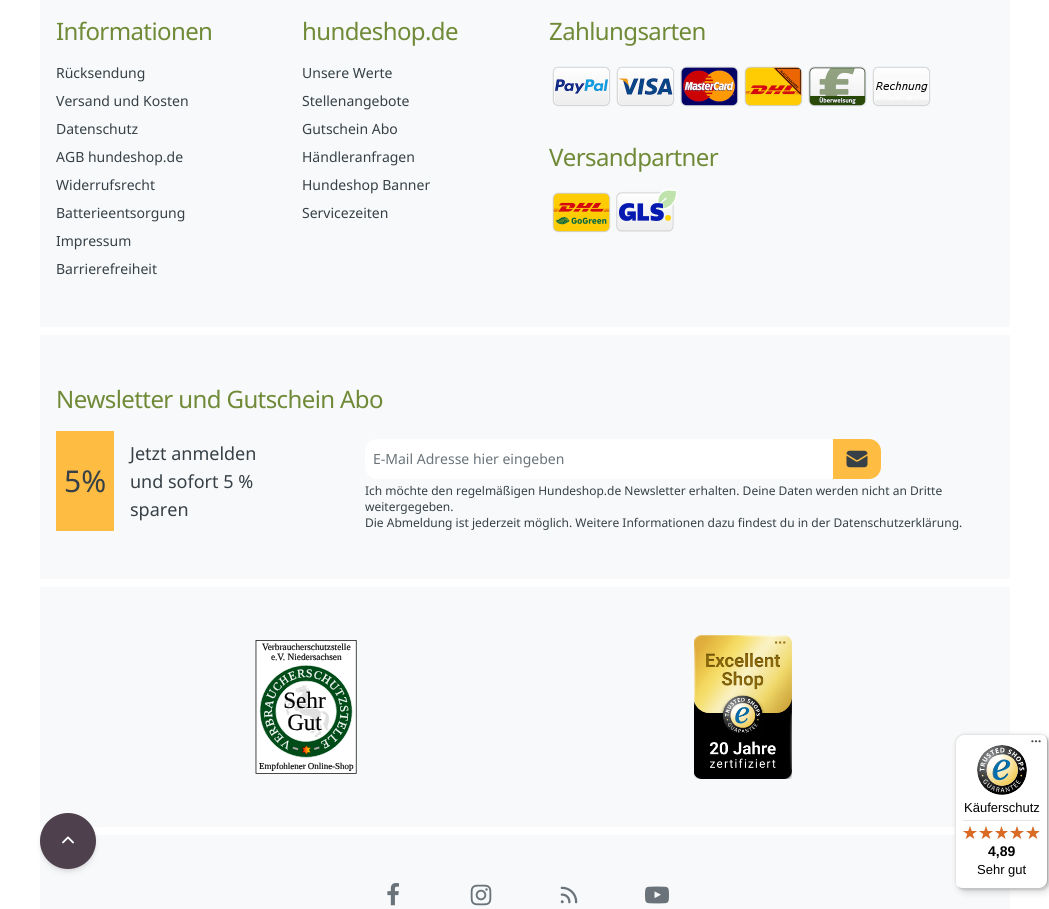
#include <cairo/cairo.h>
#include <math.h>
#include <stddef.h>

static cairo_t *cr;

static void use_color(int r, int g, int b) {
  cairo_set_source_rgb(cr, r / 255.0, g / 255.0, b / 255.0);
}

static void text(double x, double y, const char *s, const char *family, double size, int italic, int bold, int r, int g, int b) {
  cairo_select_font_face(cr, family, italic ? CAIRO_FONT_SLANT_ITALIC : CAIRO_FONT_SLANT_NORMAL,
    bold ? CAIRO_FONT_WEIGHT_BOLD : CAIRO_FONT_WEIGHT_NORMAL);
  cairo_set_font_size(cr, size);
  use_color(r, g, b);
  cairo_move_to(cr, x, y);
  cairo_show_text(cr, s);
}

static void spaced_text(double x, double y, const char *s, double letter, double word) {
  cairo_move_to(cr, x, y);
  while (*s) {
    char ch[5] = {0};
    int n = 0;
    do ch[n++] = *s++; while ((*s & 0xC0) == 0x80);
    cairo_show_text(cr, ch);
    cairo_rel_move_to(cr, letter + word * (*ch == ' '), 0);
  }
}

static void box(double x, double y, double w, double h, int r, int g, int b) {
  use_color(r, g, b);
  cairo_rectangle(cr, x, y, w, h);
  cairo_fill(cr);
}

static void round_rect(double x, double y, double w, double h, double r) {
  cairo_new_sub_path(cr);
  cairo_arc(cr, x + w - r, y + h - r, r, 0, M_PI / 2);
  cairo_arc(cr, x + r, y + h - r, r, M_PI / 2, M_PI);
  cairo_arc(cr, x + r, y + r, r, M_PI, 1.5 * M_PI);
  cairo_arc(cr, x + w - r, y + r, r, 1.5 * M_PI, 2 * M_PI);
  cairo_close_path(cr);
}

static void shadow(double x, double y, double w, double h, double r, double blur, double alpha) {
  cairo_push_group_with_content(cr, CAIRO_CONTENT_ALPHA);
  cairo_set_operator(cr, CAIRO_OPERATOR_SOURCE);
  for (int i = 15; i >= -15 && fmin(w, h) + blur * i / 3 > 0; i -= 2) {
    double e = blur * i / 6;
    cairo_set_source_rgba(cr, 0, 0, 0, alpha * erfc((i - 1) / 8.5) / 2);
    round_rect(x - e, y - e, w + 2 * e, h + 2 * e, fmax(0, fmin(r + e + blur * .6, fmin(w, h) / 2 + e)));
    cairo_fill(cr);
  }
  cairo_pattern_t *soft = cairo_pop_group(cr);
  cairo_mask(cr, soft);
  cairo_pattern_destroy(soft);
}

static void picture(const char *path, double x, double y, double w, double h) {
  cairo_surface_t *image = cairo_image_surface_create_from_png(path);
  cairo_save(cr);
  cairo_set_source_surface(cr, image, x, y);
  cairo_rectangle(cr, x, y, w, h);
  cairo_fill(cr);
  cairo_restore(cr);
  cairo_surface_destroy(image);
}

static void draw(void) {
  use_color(255, 255, 255);
  cairo_paint(cr);
  box(40, 0, 970, 909, 247, 249, 250);
  picture("img_01.png", 552, 66, 59, 41);
  picture("img_02.png", 616, 66, 59, 41);
  picture("img_03.png", 680, 66, 59, 41);
  picture("img_04.png", 744, 66, 59, 41);
  picture("img_05.png", 808, 66, 59, 41);
  picture("img_06.png", 872, 66, 59, 41);
  picture("img_07.png", 552, 192, 59, 41);
  picture("img_08.png", 616, 189, 61, 43);
  box(40, 327, 970, 8, 255, 255, 255);
  box(56, 431, 58, 100, 255, 188, 66);
  use_color(255, 255, 255);
  cairo_new_path(cr);
  cairo_move_to(cr, 377, 439);
  cairo_line_to(cr, 834, 439);
  cairo_line_to(cr, 834, 479);
  cairo_line_to(cr, 377, 479);
  cairo_curve_to(cr, 370.5, 479, 365, 473.5, 365, 467);
  cairo_line_to(cr, 365, 451);
  cairo_curve_to(cr, 365, 444.5, 370.5, 439, 377, 439);
  cairo_close_path(cr);
  cairo_fill(cr);
  use_color(255, 188, 66);
  cairo_new_path(cr);
  cairo_move_to(cr, 833, 439);
  cairo_line_to(cr, 869, 439);
  cairo_curve_to(cr, 875.5, 439, 881, 444.5, 881, 451);
  cairo_line_to(cr, 881, 467);
  cairo_curve_to(cr, 881, 473.5, 875.5, 479, 869, 479);
  cairo_line_to(cr, 833, 479);
  cairo_close_path(cr);
  cairo_fill(cr);
  picture("img_09.png", 846, 450, 22, 18);
  box(40, 579, 970, 8, 255, 255, 255);
  picture("img_10.png", 255, 640, 102, 134);
  picture("img_11.png", 694, 635, 98, 144);
  box(40, 827, 915, 8, 255, 255, 255);
  use_color(0, 0, 0);
  shadow(42, 817, 52, 52, 26, 2, 0.1);
  shadow(41, 818, 54, 54, 27, 3, 0.1);
  use_color(78, 65, 77);
  cairo_arc(cr, 68, 841, 28, 0, 2 * M_PI);
  cairo_fill(cr);
  picture("img_12.png", 62, 836, 12, 8);
  picture("img_13.png", 387, 883, 12, 23);
  picture("img_14.png", 470, 884, 22, 22);
  picture("img_15.png", 560, 886, 18, 18);
  picture("img_16.png", 645, 886, 24, 18);
  use_color(0, 0, 0);
  shadow(958, 737, 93, 155, 8, 4, 0.15);
  shadow(956, 735, 93, 155, 8, 1, 0.15);
  use_color(255, 255, 255);
  round_rect(955, 734, 93, 155, 8);
  cairo_fill(cr);
  use_color(229, 229, 229);
  cairo_new_path(cr);
  cairo_move_to(cr, 964, 735);
  cairo_line_to(cr, 1041, 735);
  cairo_curve_to(cr, 1043, 735, 1045, 736, 1047, 738);
  cairo_curve_to(cr, 1045, 736, 1043, 734, 1040, 734);
  cairo_line_to(cr, 963, 734);
  cairo_curve_to(cr, 959, 734, 955, 738, 955, 742);
  cairo_line_to(cr, 955, 881);
  cairo_curve_to(cr, 955, 884, 957, 886, 959, 888);
  cairo_curve_to(cr, 957, 886, 956, 884, 956, 882);
  cairo_line_to(cr, 956, 743);
  cairo_curve_to(cr, 956, 739, 960, 735, 964, 735);
  cairo_close_path(cr);
  cairo_fill(cr);
  cairo_set_source_rgba(cr, 0, 0, 0, 0.2);
  cairo_new_path(cr);
  cairo_move_to(cr, 956, 885);
  cairo_curve_to(cr, 958, 887, 960, 889, 963, 889);
  cairo_line_to(cr, 1040, 889);
  cairo_curve_to(cr, 1044, 889, 1048, 885, 1048, 881);
  cairo_line_to(cr, 1048, 742);
  cairo_curve_to(cr, 1048, 739, 1046, 737, 1044, 735);
  cairo_curve_to(cr, 1046, 737, 1047, 739, 1047, 741);
  cairo_line_to(cr, 1047, 880);
  cairo_curve_to(cr, 1047, 884, 1043, 888, 1039, 888);
  cairo_line_to(cr, 962, 888);
  cairo_curve_to(cr, 960, 888, 958, 887, 956, 885);
  cairo_close_path(cr);
  cairo_fill(cr);
  cairo_set_source_rgba(cr, 0.196, 0.196, 0.196, 0.2);
  cairo_new_path(cr);
  cairo_move_to(cr, 957, 886);
  cairo_curve_to(cr, 958, 888, 961, 889, 963, 889);
  cairo_line_to(cr, 1040, 889);
  cairo_curve_to(cr, 1044, 889, 1048, 885, 1048, 881);
  cairo_line_to(cr, 1048, 742);
  cairo_curve_to(cr, 1048, 740, 1047, 737, 1045, 736);
  cairo_curve_to(cr, 1046, 737, 1047, 739, 1047, 741);
  cairo_line_to(cr, 1047, 880);
  cairo_curve_to(cr, 1047, 885, 1044, 888, 1039, 888);
  cairo_line_to(cr, 962, 888);
  cairo_curve_to(cr, 960, 888, 958, 887, 957, 886);
  cairo_close_path(cr);
  cairo_fill(cr);
  picture("img_17.png", 1031, 740, 10, 3);
  cairo_set_source_rgba(cr, 1, 1, 1, 0.3);
  cairo_new_path(cr);
  cairo_move_to(cr, 957, 886);
  cairo_curve_to(cr, 958, 888, 961, 889, 963, 889);
  cairo_line_to(cr, 1040, 889);
  cairo_curve_to(cr, 1044, 889, 1048, 885, 1048, 881);
  cairo_line_to(cr, 1048, 880);
  cairo_curve_to(cr, 1048, 885, 1044, 888, 1040, 888);
  cairo_line_to(cr, 962, 888);
  cairo_curve_to(cr, 960, 888, 958, 887, 957, 886);
  cairo_close_path(cr);
  cairo_fill(cr);
  picture("img_18.png", 977, 745, 50, 50);
  box(963, 820, 77, 1, 229, 229, 229);
  picture("img_19.png", 963, 826, 14, 13);
  picture("img_19.png", 979, 826, 14, 13);
  picture("img_20.png", 995, 826, 13, 13);
  picture("img_19.png", 1010, 826, 14, 13);
  picture("img_19.png", 1026, 826, 14, 13);
  picture("img_21.png", 963, 826, 14, 13);
  picture("img_21.png", 979, 826, 14, 13);
  picture("img_22.png", 995, 826, 13, 13);
  picture("img_21.png", 1010, 826, 14, 13);
  picture("img_23.png", 1026, 826, 13, 13);
  cairo_select_font_face(cr, "Noto Sans", CAIRO_FONT_SLANT_NORMAL, CAIRO_FONT_WEIGHT_NORMAL);
  cairo_set_font_size(cr, 24);
  use_color(112, 138, 55);
  spaced_text(56, 40, "Informationen", -0.6, 0);
  text(56, 78, "Rücksendung", "Noto Sans", 14, 0, 0, 54, 64, 70);
  text(56, 106, "Versand und Kosten", "Noto Sans", 14, 0, 0, 54, 64, 70);
  text(56, 134, "Datenschutz", "Noto Sans", 14, 0, 0, 54, 64, 70);
  text(56, 162, "AGB hundeshop.de", "Noto Sans", 14, 0, 0, 54, 64, 70);
  text(56, 190, "Widerrufsrecht", "Noto Sans", 14, 0, 0, 54, 64, 70);
  text(56, 218, "Batterieentsorgung", "Noto Sans", 14, 0, 0, 54, 64, 70);
  text(56, 246, "Impressum", "Noto Sans", 14, 0, 0, 54, 64, 70);
  text(56, 274, "Barrierefreiheit", "Noto Sans", 14, 0, 0, 54, 64, 70);
  cairo_set_font_size(cr, 24);
  use_color(112, 138, 55);
  spaced_text(302, 40, "hundeshop.de", -0.6, 0);
  text(302, 78, "Unsere Werte", "Noto Sans", 14, 0, 0, 54, 64, 70);
  text(302, 106, "Stellenangebote", "Noto Sans", 14, 0, 0, 54, 64, 70);
  text(302, 134, "Gutschein Abo", "Noto Sans", 14, 0, 0, 54, 64, 70);
  text(302, 162, "Händleranfragen", "Noto Sans", 14, 0, 0, 54, 64, 70);
  text(302, 190, "Hundeshop Banner", "Noto Sans", 14, 0, 0, 54, 64, 70);
  text(302, 218, "Servicezeiten", "Noto Sans", 14, 0, 0, 54, 64, 70);
  cairo_set_font_size(cr, 24);
  use_color(112, 138, 55);
  spaced_text(549, 40, "Zahlungsarten", -0.6, 0);
  spaced_text(549, 166, "Versandpartner", -0.6, 0);
  spaced_text(56, 408, "Newsletter und Gutschein Abo", -0.6, 0);
  text(64, 492, "5%", "Noto Sans", 30, 0, 0, 54, 64, 70);
  text(130, 460, "Jetzt anmelden", "Noto Sans", 18, 0, 0, 54, 64, 70);
  text(130, 488, "und sofort 5 %", "Noto Sans", 18, 0, 0, 54, 64, 70);
  text(130, 516, "sparen", "Noto Sans", 18, 0, 0, 54, 64, 70);
  text(373, 464, "E-Mail Adresse hier eingeben", "Noto Sans", 14, 0, 0, 105, 115, 121);
  text(365, 495, "Ich möchte den regelmäßigen Hundeshop.de Newsletter erhalten. Deine Daten werden nicht an Dritte", "Noto Sans", 12, 0, 0, 54, 64, 70);
  text(365, 511, "weitergegeben.", "Noto Sans", 12, 0, 0, 54, 64, 70);
  text(365, 527, "Die Abmeldung ist jederzeit möglich. Weitere Informationen dazu findest du in der Datenschutzerklärung.", "Noto Sans", 12, 0, 0, 54, 64, 70);
  text(964, 812, "Käuferschutz", "Liberation Sans", 13, 0, 0, 0, 0, 0);
  text(988, 856, "4,89", "Liberation Sans", 14, 0, 1, 0, 0, 0);
  text(977, 874, "Sehr gut", "Liberation Sans", 13, 0, 0, 0, 0, 0);
}

int main(void) {
  cairo_surface_t *surface = cairo_image_surface_create(CAIRO_FORMAT_RGB24, 1049, 909);
  cr = cairo_create(surface);
  cairo_font_options_t *options = cairo_font_options_create();
  cairo_font_options_set_hint_metrics(options, CAIRO_HINT_METRICS_OFF);
  cairo_font_options_set_hint_style(options, CAIRO_HINT_STYLE_NONE);
  cairo_set_font_options(cr, options);
  cairo_set_miter_limit(cr, 4);
  draw();
  cairo_surface_write_to_png(surface, "out.png");
  cairo_font_options_destroy(options);
  cairo_destroy(cr);
  cairo_surface_destroy(surface);
  return 0;
}
